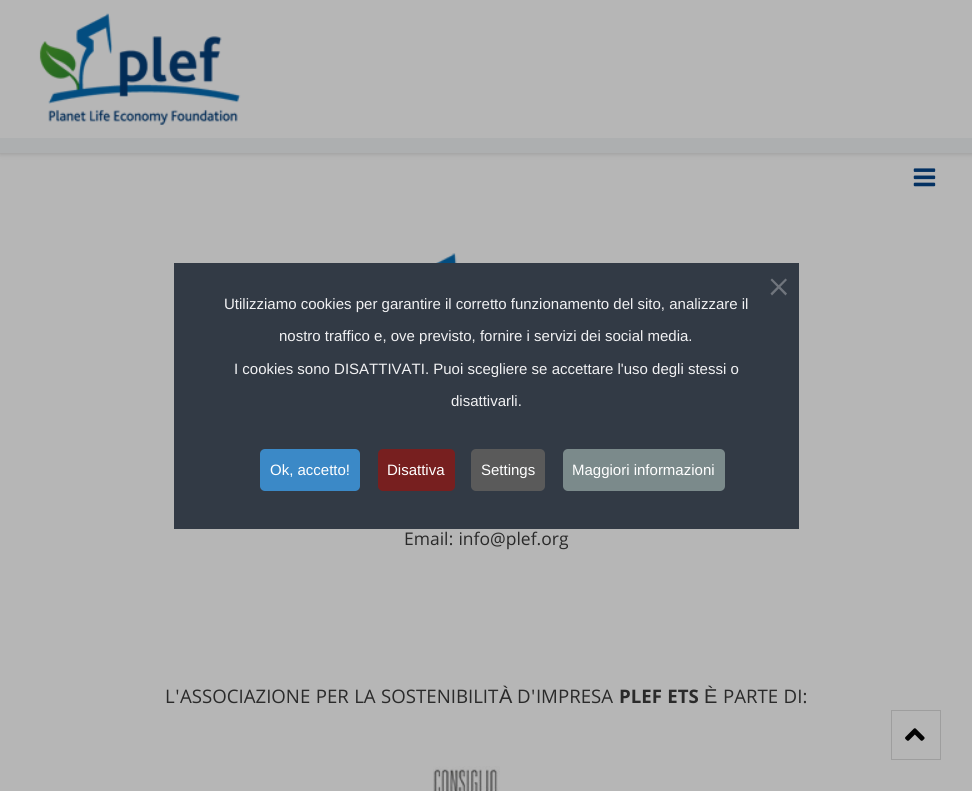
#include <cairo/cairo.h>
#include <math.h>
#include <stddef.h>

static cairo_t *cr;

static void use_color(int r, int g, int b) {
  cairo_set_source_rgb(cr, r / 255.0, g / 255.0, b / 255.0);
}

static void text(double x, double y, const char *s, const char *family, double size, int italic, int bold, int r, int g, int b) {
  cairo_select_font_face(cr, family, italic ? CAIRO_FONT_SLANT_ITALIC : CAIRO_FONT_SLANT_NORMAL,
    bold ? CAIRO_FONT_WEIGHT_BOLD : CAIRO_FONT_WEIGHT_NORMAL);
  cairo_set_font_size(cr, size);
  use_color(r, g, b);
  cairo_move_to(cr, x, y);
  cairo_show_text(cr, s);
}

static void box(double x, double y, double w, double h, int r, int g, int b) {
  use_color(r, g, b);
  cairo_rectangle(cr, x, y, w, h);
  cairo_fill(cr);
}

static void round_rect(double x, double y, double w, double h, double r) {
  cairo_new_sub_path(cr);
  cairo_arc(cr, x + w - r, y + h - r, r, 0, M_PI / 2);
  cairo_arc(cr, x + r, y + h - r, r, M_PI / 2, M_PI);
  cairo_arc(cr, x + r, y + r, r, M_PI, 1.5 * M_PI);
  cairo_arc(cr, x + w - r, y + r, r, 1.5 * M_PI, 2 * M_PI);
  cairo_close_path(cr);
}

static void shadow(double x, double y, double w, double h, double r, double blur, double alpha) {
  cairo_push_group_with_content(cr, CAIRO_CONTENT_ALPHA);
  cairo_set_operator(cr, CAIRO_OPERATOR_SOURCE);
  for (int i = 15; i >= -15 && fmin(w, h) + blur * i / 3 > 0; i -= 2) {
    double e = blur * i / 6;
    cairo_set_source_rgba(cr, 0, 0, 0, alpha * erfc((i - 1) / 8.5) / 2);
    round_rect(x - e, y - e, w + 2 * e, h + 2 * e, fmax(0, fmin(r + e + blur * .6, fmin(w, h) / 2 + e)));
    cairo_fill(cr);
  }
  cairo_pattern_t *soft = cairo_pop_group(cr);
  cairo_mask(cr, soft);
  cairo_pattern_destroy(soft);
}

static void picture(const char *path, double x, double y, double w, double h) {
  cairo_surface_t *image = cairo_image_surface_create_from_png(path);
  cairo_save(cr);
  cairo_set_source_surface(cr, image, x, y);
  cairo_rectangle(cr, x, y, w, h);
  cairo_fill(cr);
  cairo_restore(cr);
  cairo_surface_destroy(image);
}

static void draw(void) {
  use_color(182, 182, 182);
  cairo_paint(cr);
  box(174, 263, 625, 266, 50, 58, 69);
  use_color(112, 117, 125);
  cairo_new_path(cr);
  cairo_move_to(cr, 785.5, 278.5);
  cairo_line_to(cr, 787, 280);
  cairo_line_to(cr, 772, 295.5);
  cairo_line_to(cr, 770.5, 293.5);
  cairo_close_path(cr);
  cairo_fill(cr);
  cairo_new_path(cr);
  cairo_move_to(cr, 770.5, 280);
  cairo_line_to(cr, 772, 278.5);
  cairo_line_to(cr, 787, 293.5);
  cairo_line_to(cr, 785.5, 295.5);
  cairo_close_path(cr);
  cairo_fill(cr);
  use_color(59, 137, 199);
  round_rect(260, 449, 100, 42, 5);
  cairo_fill(cr);
  use_color(119, 31, 31);
  round_rect(378, 449, 77, 42, 5);
  cairo_fill(cr);
  use_color(90, 90, 90);
  round_rect(471, 449, 74, 42, 5);
  cairo_fill(cr);
  use_color(123, 138, 139);
  round_rect(563, 449, 162, 42, 5);
  cairo_fill(cr);
  use_color(3, 3, 3);
  shadow(0, -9, 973, 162, 0, 3, 0.2);
  box(0, 0, 972, 138, 182, 182, 182);
  picture("img_01.png", 39, 13, 202, 112);
  picture("img_02.png", 913, 168, 23, 19);
  box(0, 138, 972, 15, 173, 175, 176);
  picture("img_03.png", 436, 253, 21, 10);
  picture("img_04.png", 433, 766, 67, 25);
  cairo_rectangle(cr, 891.5, 710.5, 49, 49);
  use_color(158, 158, 158);
  cairo_set_line_width(cr, 1);
  cairo_stroke(cr);
  picture("img_05.png", 905, 728, 20, 13);
  text(224, 309, "Utilizziamo cookies per garantire il corretto funzionamento del sito, analizzare il", "Liberation Sans", 15, 0, 0, 241, 241, 243);
  text(279, 341, "nostro traffico e, ove previsto, fornire i servizi dei social media.", "Liberation Sans", 15, 0, 0, 241, 241, 243);
  text(234, 374, "I cookies sono DISATTIVATI. Puoi scegliere se accettare l'uso degli stessi o", "Liberation Sans", 15, 0, 0, 241, 241, 243);
  text(451, 406, "disattivarli.", "Liberation Sans", 15, 0, 0, 241, 241, 243);
  text(270, 475, "Ok, accetto!", "Liberation Sans", 15, 0, 0, 255, 255, 255);
  text(387, 475, "Disattiva", "Liberation Sans", 15, 0, 0, 255, 255, 255);
  text(481, 475, "Settings", "Liberation Sans", 15, 0, 0, 255, 255, 255);
  text(572, 475, "Maggiori informazioni", "Liberation Sans", 15, 0, 0, 255, 255, 255);
  text(404, 545, "Email: info@plef.org", "Khula", 18.75, 0, 0, 42, 42, 42);
  text(165, 703, "L'ASSOCIAZIONE PER LA SOSTENIBILIT", "Khula", 20, 0, 0, 42, 42, 42);
  text(499, 703, "À", "Liberation Sans", 20, 0, 0, 42, 42, 42);
  text(517, 703, "D'IMPRESA", "Khula", 20, 0, 0, 42, 42, 42);
  text(619, 703, "PLEF ETS", "Khula", 20, 0, 1, 42, 42, 42);
  text(704, 703, "È", "Liberation Sans", 20, 0, 0, 42, 42, 42);
  text(723, 703, "PARTE DI:", "Khula", 20, 0, 0, 42, 42, 42);
}

int main(void) {
  cairo_surface_t *surface = cairo_image_surface_create(CAIRO_FORMAT_RGB24, 972, 791);
  cr = cairo_create(surface);
  cairo_font_options_t *options = cairo_font_options_create();
  cairo_font_options_set_hint_metrics(options, CAIRO_HINT_METRICS_OFF);
  cairo_font_options_set_hint_style(options, CAIRO_HINT_STYLE_NONE);
  cairo_set_font_options(cr, options);
  cairo_set_miter_limit(cr, 4);
  draw();
  cairo_surface_write_to_png(surface, "out.png");
  cairo_font_options_destroy(options);
  cairo_destroy(cr);
  cairo_surface_destroy(surface);
  return 0;
}
